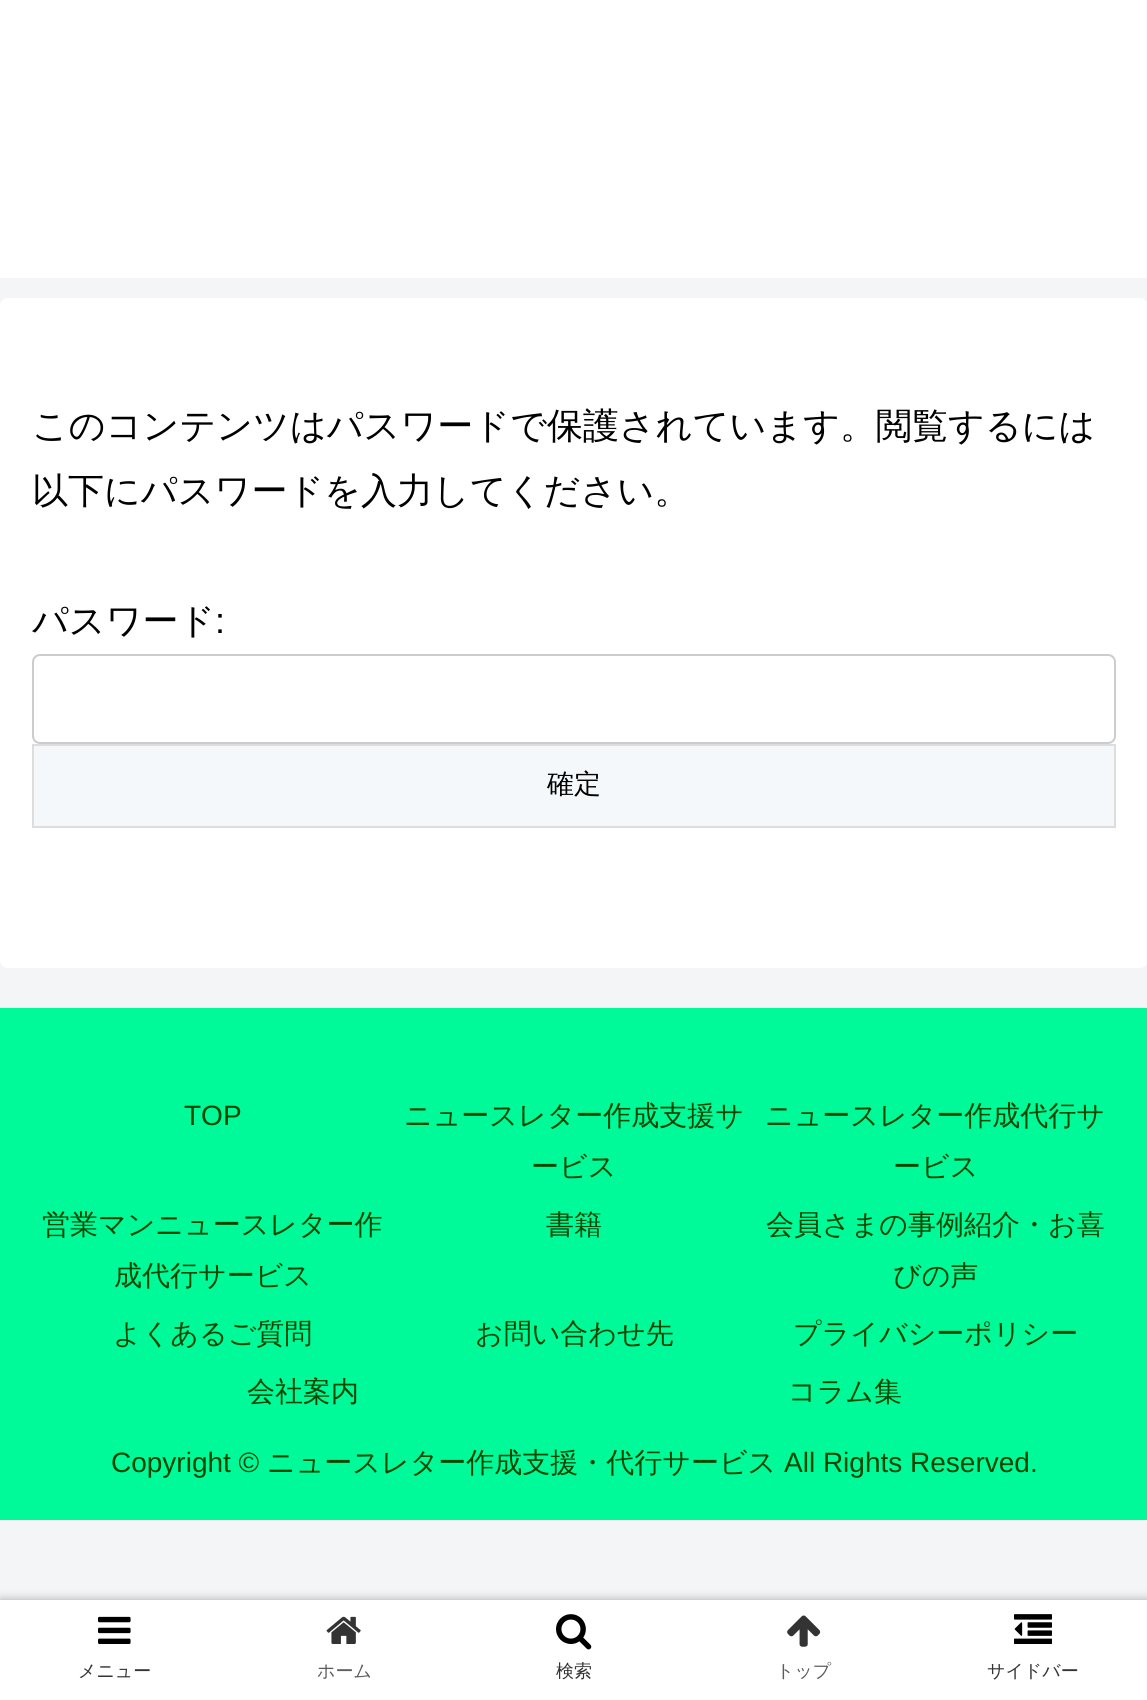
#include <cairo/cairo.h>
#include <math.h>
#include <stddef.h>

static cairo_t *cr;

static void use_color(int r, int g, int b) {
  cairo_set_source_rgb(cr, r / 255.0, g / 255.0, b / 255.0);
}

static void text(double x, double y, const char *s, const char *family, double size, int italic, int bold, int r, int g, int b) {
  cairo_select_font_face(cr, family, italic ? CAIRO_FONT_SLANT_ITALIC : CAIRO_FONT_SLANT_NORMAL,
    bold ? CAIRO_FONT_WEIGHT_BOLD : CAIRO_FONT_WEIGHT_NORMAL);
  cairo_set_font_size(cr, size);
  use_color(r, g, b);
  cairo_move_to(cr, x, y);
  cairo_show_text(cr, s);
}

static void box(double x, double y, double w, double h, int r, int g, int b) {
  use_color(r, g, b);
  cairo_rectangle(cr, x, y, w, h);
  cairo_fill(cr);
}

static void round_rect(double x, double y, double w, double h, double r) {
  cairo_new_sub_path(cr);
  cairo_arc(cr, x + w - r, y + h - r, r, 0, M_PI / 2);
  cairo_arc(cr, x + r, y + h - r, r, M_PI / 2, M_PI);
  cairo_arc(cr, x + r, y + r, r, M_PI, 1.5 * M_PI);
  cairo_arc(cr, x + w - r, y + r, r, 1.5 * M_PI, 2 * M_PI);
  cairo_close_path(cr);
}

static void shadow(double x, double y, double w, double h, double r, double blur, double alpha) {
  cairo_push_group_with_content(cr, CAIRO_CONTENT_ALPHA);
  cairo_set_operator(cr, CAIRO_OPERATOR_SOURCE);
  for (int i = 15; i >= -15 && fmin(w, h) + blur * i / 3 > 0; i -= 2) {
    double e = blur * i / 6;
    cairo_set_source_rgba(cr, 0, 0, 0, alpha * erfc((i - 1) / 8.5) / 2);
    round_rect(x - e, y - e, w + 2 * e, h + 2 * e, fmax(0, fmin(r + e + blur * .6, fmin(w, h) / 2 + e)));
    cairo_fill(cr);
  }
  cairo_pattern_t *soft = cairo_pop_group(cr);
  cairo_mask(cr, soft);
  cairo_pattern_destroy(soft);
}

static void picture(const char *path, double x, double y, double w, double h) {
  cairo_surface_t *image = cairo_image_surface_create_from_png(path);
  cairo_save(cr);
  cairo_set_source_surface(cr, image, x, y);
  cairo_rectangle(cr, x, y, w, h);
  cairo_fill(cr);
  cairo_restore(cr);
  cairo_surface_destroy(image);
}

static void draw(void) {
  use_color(244, 245, 247);
  cairo_paint(cr);
  box(0, 0, 1147, 278, 255, 255, 255);
  round_rect(0, 298, 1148, 670, 8);
  cairo_fill(cr);
  round_rect(33, 655, 1082, 88, 7);
  use_color(204, 204, 204);
  cairo_stroke(cr);
  use_color(245, 248, 250);
  cairo_rectangle(cr, 33, 745, 1082, 82);
  cairo_fill_preserve(cr);
  use_color(221, 221, 221);
  cairo_stroke(cr);
  box(0, 1008, 1147, 512, 0, 250, 154);
  use_color(169, 169, 169);
  shadow(0, 1600, 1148, 100, 0, 5, 1);
  box(0, 1600, 1147, 100, 255, 255, 255);
  picture("img_01.png", 98, 1616, 33, 28);
  picture("img_02.png", 326, 1616, 35, 28);
  picture("img_03.png", 556, 1614, 36, 36);
  picture("img_04.png", 787, 1615, 34, 32);
  picture("img_05.png", 1014, 1614, 38, 30);
  text(32, 438, "このコンテンツはパスワードで保護されています。閲覧するには", "WenQuanYi Zen Hei Medium", 36, 0, 0, 0, 0, 0);
  text(32, 503, "以下にパスワードを入力してください。", "WenQuanYi Zen Hei Medium", 36, 0, 0, 0, 0, 0);
  text(32, 633, "パスワード", "WenQuanYi Zen Hei Medium", 36, 0, 0, 0, 0, 0);
  text(215, 633, ":", "Liberation Sans", 36, 0, 0, 0, 0, 0);
  text(547, 793, "確定", "WenQuanYi Zen Hei Medium", 27, 0, 0, 0, 0, 0);
  text(184, 1125, "TOP", "Liberation Sans", 28, 0, 0, 2, 71, 0);
  text(404, 1125, "ニュースレター作成支援サ", "WenQuanYi Zen Hei Medium", 28, 0, 0, 2, 71, 0);
  text(531, 1176, "ービス", "WenQuanYi Zen Hei Medium", 28, 0, 0, 2, 71, 0);
  text(765, 1125, "ニュースレター作成代行サ", "WenQuanYi Zen Hei Medium", 28, 0, 0, 2, 71, 0);
  text(893, 1176, "ービス", "WenQuanYi Zen Hei Medium", 28, 0, 0, 2, 71, 0);
  text(42, 1234, "営業マンニュースレター作", "WenQuanYi Zen Hei Medium", 28, 0, 0, 2, 71, 0);
  text(114, 1285, "成代行サービス", "WenQuanYi Zen Hei Medium", 28, 0, 0, 2, 71, 0);
  text(546, 1234, "書籍", "WenQuanYi Zen Hei Medium", 28, 0, 0, 2, 71, 0);
  text(766, 1234, "会員さまの事例紹介・お喜", "WenQuanYi Zen Hei Medium", 28, 0, 0, 2, 71, 0);
  text(893, 1285, "びの声", "WenQuanYi Zen Hei Medium", 28, 0, 0, 2, 71, 0);
  text(113, 1343, "よくあるご質問", "WenQuanYi Zen Hei Medium", 28, 0, 0, 2, 71, 0);
  text(475, 1343, "お問い合わせ先", "WenQuanYi Zen Hei Medium", 28, 0, 0, 2, 71, 0);
  text(793, 1343, "プライバシーポリシー", "WenQuanYi Zen Hei Medium", 28, 0, 0, 2, 71, 0);
  text(247, 1401, "会社案内", "WenQuanYi Zen Hei Medium", 28, 0, 0, 2, 71, 0);
  text(788, 1401, "コラム集", "WenQuanYi Zen Hei Medium", 28, 0, 0, 2, 71, 0);
  text(111, 1472, "Copyright ©", "Liberation Sans", 28, 0, 0, 2, 71, 0);
  text(267, 1472, "ニュースレター作成支援・代行サービス", "WenQuanYi Zen Hei Medium", 28, 0, 0, 2, 71, 0);
  text(784, 1472, "All Rights Reserved.", "Liberation Sans", 28, 0, 0, 2, 71, 0);
  text(78, 1677, "メニュー", "WenQuanYi Zen Hei Medium", 18, 0, 0, 51, 51, 51);
  text(317, 1677, "ホーム", "WenQuanYi Zen Hei Medium", 18, 0, 0, 92, 92, 92);
  text(556, 1677, "検索", "WenQuanYi Zen Hei Medium", 18, 0, 0, 51, 51, 51);
  text(776, 1677, "トップ", "WenQuanYi Zen Hei Medium", 18, 0, 0, 92, 92, 92);
  text(987, 1677, "サイドバー", "WenQuanYi Zen Hei Medium", 18, 0, 0, 51, 51, 51);
}

int main(void) {
  cairo_surface_t *surface = cairo_image_surface_create(CAIRO_FORMAT_RGB24, 1147, 1700);
  cr = cairo_create(surface);
  cairo_font_options_t *options = cairo_font_options_create();
  cairo_font_options_set_hint_metrics(options, CAIRO_HINT_METRICS_OFF);
  cairo_font_options_set_hint_style(options, CAIRO_HINT_STYLE_NONE);
  cairo_set_font_options(cr, options);
  cairo_set_miter_limit(cr, 4);
  draw();
  cairo_surface_write_to_png(surface, "out.png");
  cairo_font_options_destroy(options);
  cairo_destroy(cr);
  cairo_surface_destroy(surface);
  return 0;
}
